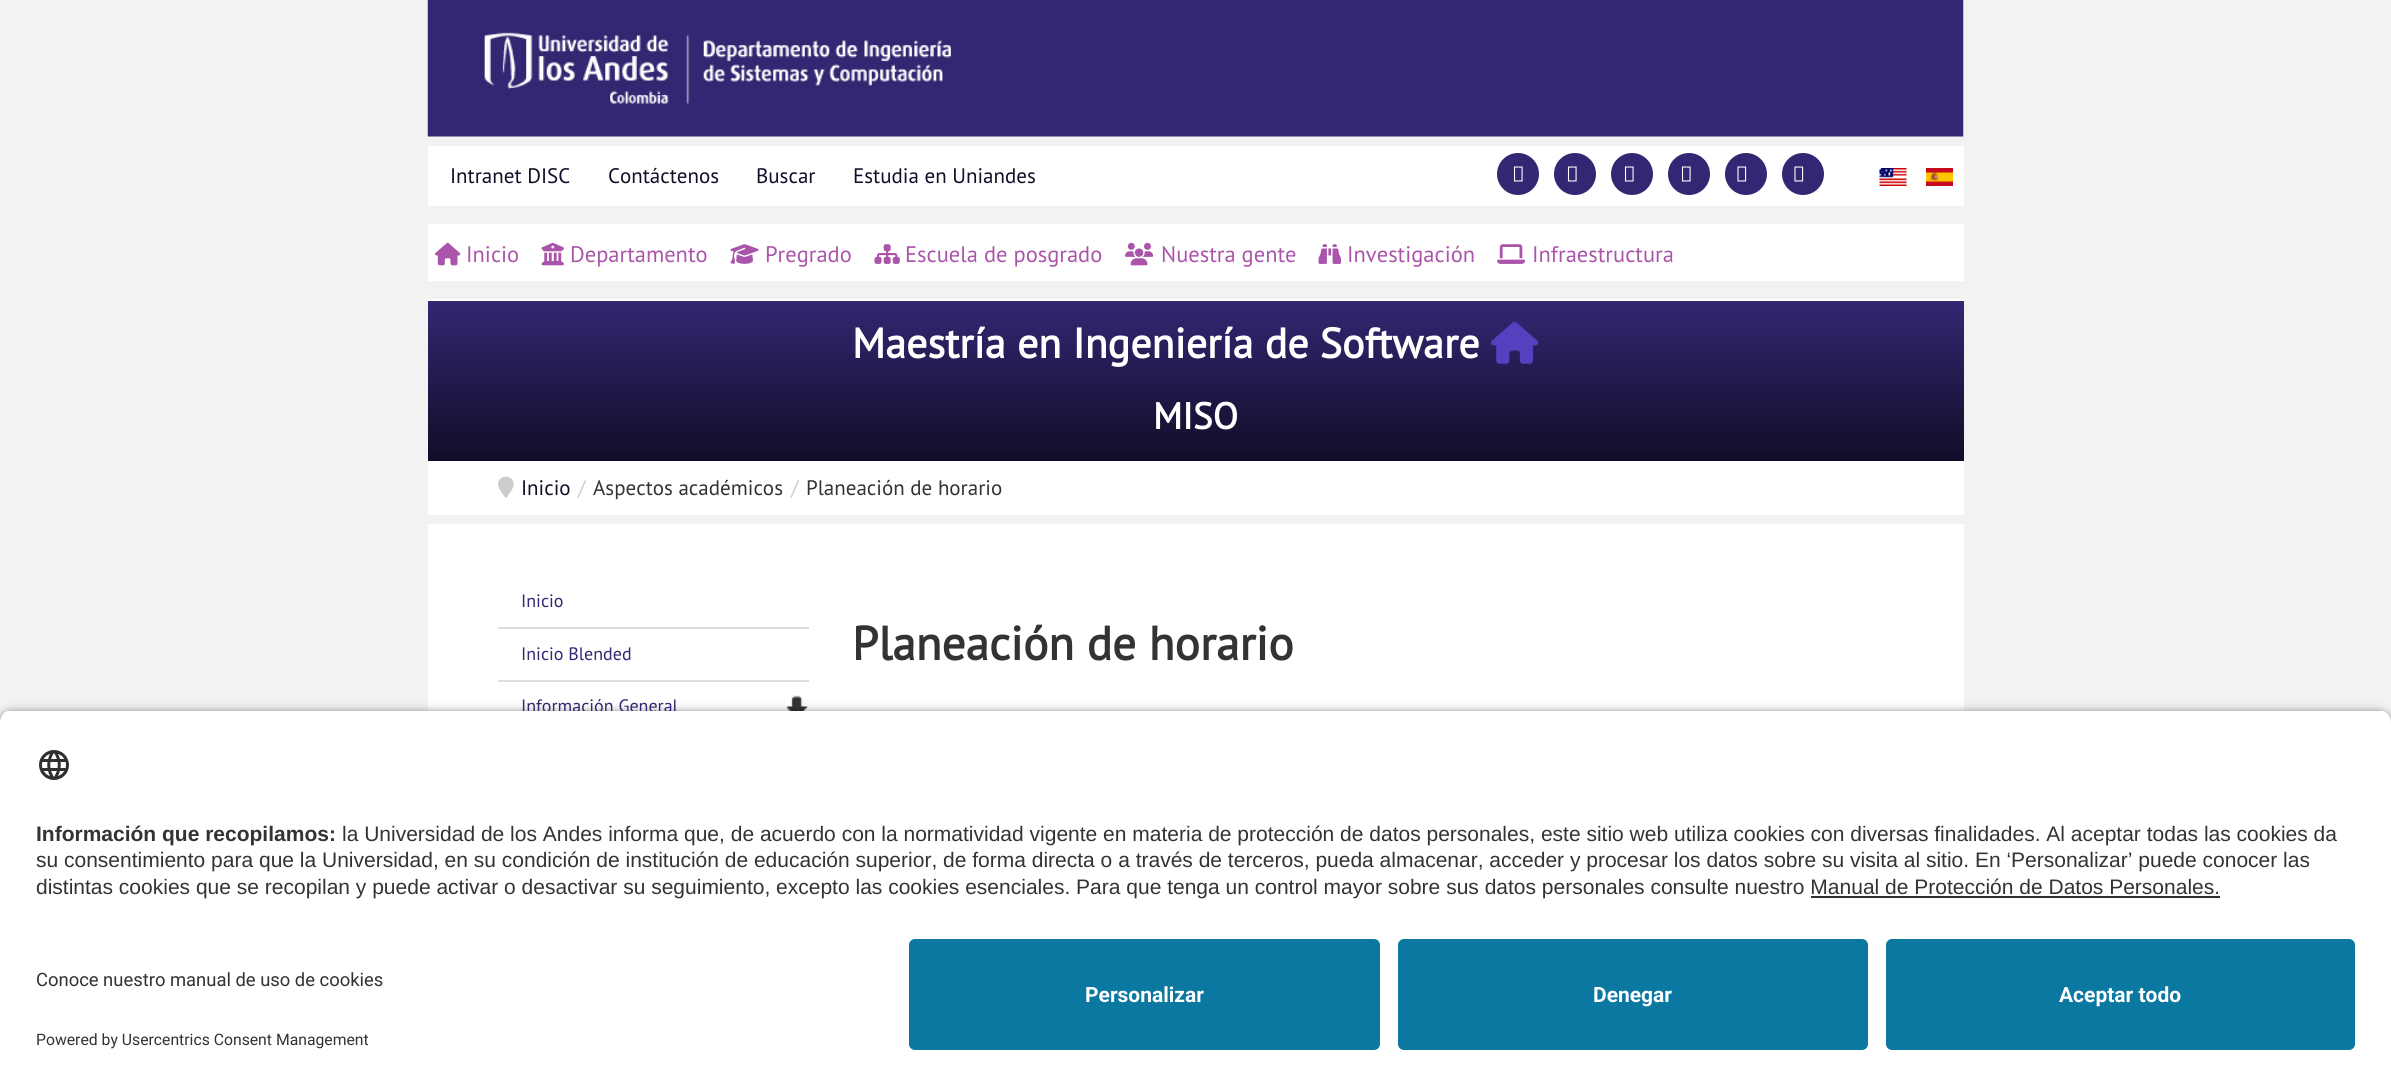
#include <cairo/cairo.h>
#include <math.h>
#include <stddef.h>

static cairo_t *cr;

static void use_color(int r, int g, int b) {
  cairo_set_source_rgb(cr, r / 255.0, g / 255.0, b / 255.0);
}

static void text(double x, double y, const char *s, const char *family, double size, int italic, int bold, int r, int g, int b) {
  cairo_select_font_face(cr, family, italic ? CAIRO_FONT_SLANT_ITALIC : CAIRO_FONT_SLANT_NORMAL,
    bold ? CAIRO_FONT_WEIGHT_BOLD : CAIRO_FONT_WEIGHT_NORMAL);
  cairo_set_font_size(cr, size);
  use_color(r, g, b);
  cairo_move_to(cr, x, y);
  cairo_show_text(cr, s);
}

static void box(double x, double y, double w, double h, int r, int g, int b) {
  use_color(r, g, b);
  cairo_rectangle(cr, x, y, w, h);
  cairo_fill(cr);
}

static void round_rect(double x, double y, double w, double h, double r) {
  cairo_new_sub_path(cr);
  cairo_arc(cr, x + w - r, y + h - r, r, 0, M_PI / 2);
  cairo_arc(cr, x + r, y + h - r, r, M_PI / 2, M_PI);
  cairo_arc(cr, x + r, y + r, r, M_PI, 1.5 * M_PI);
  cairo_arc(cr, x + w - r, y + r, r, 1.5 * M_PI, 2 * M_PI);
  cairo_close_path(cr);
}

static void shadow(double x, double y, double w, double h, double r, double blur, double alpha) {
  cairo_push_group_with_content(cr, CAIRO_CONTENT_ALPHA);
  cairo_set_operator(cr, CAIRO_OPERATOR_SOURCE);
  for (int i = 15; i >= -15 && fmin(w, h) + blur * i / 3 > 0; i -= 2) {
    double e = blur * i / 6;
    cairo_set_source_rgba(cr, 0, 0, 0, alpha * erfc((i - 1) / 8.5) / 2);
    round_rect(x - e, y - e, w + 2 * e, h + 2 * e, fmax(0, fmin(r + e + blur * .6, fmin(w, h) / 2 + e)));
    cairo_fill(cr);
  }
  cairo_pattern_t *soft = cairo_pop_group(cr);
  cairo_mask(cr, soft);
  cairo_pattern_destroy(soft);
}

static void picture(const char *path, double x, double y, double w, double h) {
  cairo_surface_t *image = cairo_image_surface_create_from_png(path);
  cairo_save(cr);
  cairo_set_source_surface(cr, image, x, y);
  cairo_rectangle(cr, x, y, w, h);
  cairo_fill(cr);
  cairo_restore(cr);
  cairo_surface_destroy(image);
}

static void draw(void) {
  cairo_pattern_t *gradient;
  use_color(242, 242, 242);
  cairo_paint(cr);
  picture("img_01.png", 427, 0, 1537, 137);
  box(428, 146, 1536, 60, 255, 255, 255);
  use_color(51, 39, 115);
  cairo_arc(cr, 1518, 174, 21, 0, 2 * M_PI);
  cairo_fill(cr);
  picture("img_02.png", 1513, 166, 10, 16);
  cairo_arc(cr, 1575, 174, 21, 0, 2 * M_PI);
  cairo_fill(cr);
  picture("img_02.png", 1567, 166, 10, 16);
  cairo_arc(cr, 1632, 174, 21, 0, 2 * M_PI);
  cairo_fill(cr);
  picture("img_02.png", 1624, 166, 10, 16);
  cairo_arc(cr, 1689, 174, 21, 0, 2 * M_PI);
  cairo_fill(cr);
  picture("img_02.png", 1681, 166, 10, 16);
  cairo_arc(cr, 1746, 174, 21, 0, 2 * M_PI);
  cairo_fill(cr);
  picture("img_03.png", 1737, 166, 10, 16);
  cairo_arc(cr, 1803, 174, 21, 0, 2 * M_PI);
  cairo_fill(cr);
  picture("img_03.png", 1794, 166, 10, 16);
  picture("img_04.png", 1879, 168, 28, 18);
  picture("img_05.png", 1926, 168, 27, 18);
  box(428, 224, 1536, 57, 255, 255, 255);
  picture("img_06.png", 435, 242, 26, 24);
  picture("img_07.png", 541, 242, 23, 24);
  picture("img_08.png", 730, 244, 29, 20);
  picture("img_09.png", 874, 244, 26, 20);
  picture("img_10.png", 1125, 242, 29, 24);
  picture("img_11.png", 1318, 244, 23, 20);
  picture("img_12.png", 1497, 244, 29, 20);
  gradient = cairo_pattern_create_linear(1196, 300, 1196, 461);
  cairo_pattern_add_color_stop_rgba(gradient, 0, 0.2, 0.153, 0.451, 1);
  cairo_pattern_add_color_stop_rgba(gradient, 1, 0.067, 0.051, 0.153, 1);
  cairo_set_source(cr, gradient);
  cairo_pattern_destroy(gradient);
  cairo_rectangle(cr, 428, 301, 1536, 160);
  cairo_fill(cr);
  box(428, 299, 1536, 2, 255, 255, 255);
  picture("img_13.png", 1491, 321, 48, 43);
  box(428, 461, 1536, 54, 255, 255, 255);
  picture("img_14.png", 498, 476, 16, 22);
  box(428, 524, 1536, 187, 255, 255, 255);
  box(498, 627, 311, 2, 221, 221, 221);
  box(498, 680, 311, 2, 221, 221, 221);
  picture("img_15.png", 786, 695, 22, 16);
  use_color(0, 0, 0);
  shadow(0, 714, 2391, 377, 12, 5, 0.8);
  box(0, 927, 2391, 158, 255, 255, 255);
  use_color(11, 120, 161);
  round_rect(909, 939, 471, 111, 6);
  cairo_fill(cr);
  round_rect(1398, 939, 470, 111, 6);
  cairo_fill(cr);
  round_rect(1886, 939, 469, 111, 6);
  cairo_fill(cr);
  text(450, 183, "Intranet DISC", "PT Sans", 21, 0, 0, 17, 13, 39);
  text(608, 183, "Contáctenos", "PT Sans", 21, 0, 0, 17, 13, 39);
  text(756, 183, "Buscar", "PT Sans", 21, 0, 0, 17, 13, 39);
  text(853, 183, "Estudia en Uniandes", "PT Sans", 21, 0, 0, 17, 13, 39);
  text(466, 262, "Inicio", "PT Sans", 22.5, 0, 0, 170, 85, 170);
  text(570, 262, "Departamento", "PT Sans", 22.5, 0, 0, 170, 85, 170);
  text(765, 262, "Pregrado", "PT Sans", 22.5, 0, 0, 170, 85, 170);
  text(905, 262, "Escuela de posgrado", "PT Sans", 22.5, 0, 0, 170, 85, 170);
  text(1161, 262, "Nuestra gente", "PT Sans", 22.5, 0, 0, 170, 85, 170);
  text(1347, 262, "Investigación", "PT Sans", 22.5, 0, 0, 170, 85, 170);
  text(1532, 262, "Infraestructura", "PT Sans", 22.5, 0, 0, 170, 85, 170);
  text(852, 358, "Maestría en Ingeniería de Software", "PT Sans", 42, 0, 1, 255, 255, 255);
  text(1153, 429, "MISO", "PT Sans", 37, 0, 1, 255, 255, 255);
  text(521, 495, "Inicio", "PT Sans", 21, 0, 0, 17, 13, 39);
  text(578, 495, "/", "PT Sans", 21, 0, 0, 204, 204, 204);
  text(593, 495, "Aspectos académicos", "PT Sans", 21, 0, 0, 51, 51, 51);
  text(791, 495, "/", "PT Sans", 21, 0, 0, 204, 204, 204);
  text(806, 495, "Planeación de horario", "PT Sans", 21, 0, 0, 51, 51, 51);
  text(521, 607, "Inicio", "PT Sans", 18, 0, 0, 51, 39, 115);
  text(521, 660, "Inicio Blended", "PT Sans", 18, 0, 0, 51, 39, 115);
  text(521, 712, "Información General", "PT Sans", 18, 0, 0, 51, 39, 115);
  text(852, 660, "Planeación de horario", "PT Sans", 47.25, 0, 1, 51, 51, 51);
  cairo_save(cr);
  cairo_new_path(cr);
  cairo_move_to(cr, 12, 710);
  cairo_line_to(cr, 2379, 710);
  cairo_curve_to(cr, 2385.5, 710, 2391, 715.5, 2391, 722);
  cairo_line_to(cr, 2391, 927);
  cairo_line_to(cr, 0, 927);
  cairo_line_to(cr, 0, 722);
  cairo_curve_to(cr, 0, 715.5, 5.5, 710, 12, 710);
  cairo_close_path(cr);
  cairo_clip(cr);
  box(0, 711, 2391, 216, 255, 255, 255);
  cairo_restore(cr);
  picture("img_16.png", 39, 750, 30, 30);
  text(36, 841, "Información que recopilamos:", "Liberation Sans", 21, 0, 1, 51, 51, 51);
  text(342, 841, "la Universidad de los Andes informa que, de acuerdo con la normatividad vigente en materia de protección de datos personales, este sitio web utiliza cookies con diversas finalidades. Al aceptar todas las cookies da", "Liberation Sans", 21, 0, 0, 51, 51, 51);
  text(36, 867, "su consentimiento para que la Universidad, en su condición de institución de educación superior, de forma directa o a través de terceros, pueda almacenar, acceder y procesar los datos sobre su visita al sitio. En ‘Personalizar’ puede conocer las", "Liberation Sans", 21, 0, 0, 51, 51, 51);
  text(36, 894, "distintas cookies que se recopilan y puede activar o desactivar su seguimiento, excepto las cookies esenciales. Para que tenga un control mayor sobre sus datos personales consulte nuestro Manual de Protección de Datos Personales.", "Liberation Sans", 21, 0, 0, 51, 51, 51);
  box(1811, 896, 409, 2, 48, 48, 48);
  text(36, 986, "Conoce nuestro manual de uso de cookies", "Roboto", 18.4, 0, 0, 51, 51, 51);
  text(36, 1045, "Powered by Usercentrics Consent Management", "Roboto", 15.75, 0, 0, 51, 51, 51);
  text(1085, 1002, "Personalizar", "Roboto", 21, 0, 1, 255, 255, 255);
  text(1593, 1002, "Denegar", "Roboto", 21, 0, 1, 255, 255, 255);
  text(2059, 1002, "Aceptar todo", "Roboto", 21, 0, 1, 255, 255, 255);
}

int main(void) {
  cairo_surface_t *surface = cairo_image_surface_create(CAIRO_FORMAT_RGB24, 2391, 1085);
  cr = cairo_create(surface);
  cairo_font_options_t *options = cairo_font_options_create();
  cairo_font_options_set_hint_metrics(options, CAIRO_HINT_METRICS_OFF);
  cairo_font_options_set_hint_style(options, CAIRO_HINT_STYLE_NONE);
  cairo_set_font_options(cr, options);
  cairo_set_miter_limit(cr, 4);
  draw();
  cairo_surface_write_to_png(surface, "out.png");
  cairo_font_options_destroy(options);
  cairo_destroy(cr);
  cairo_surface_destroy(surface);
  return 0;
}
